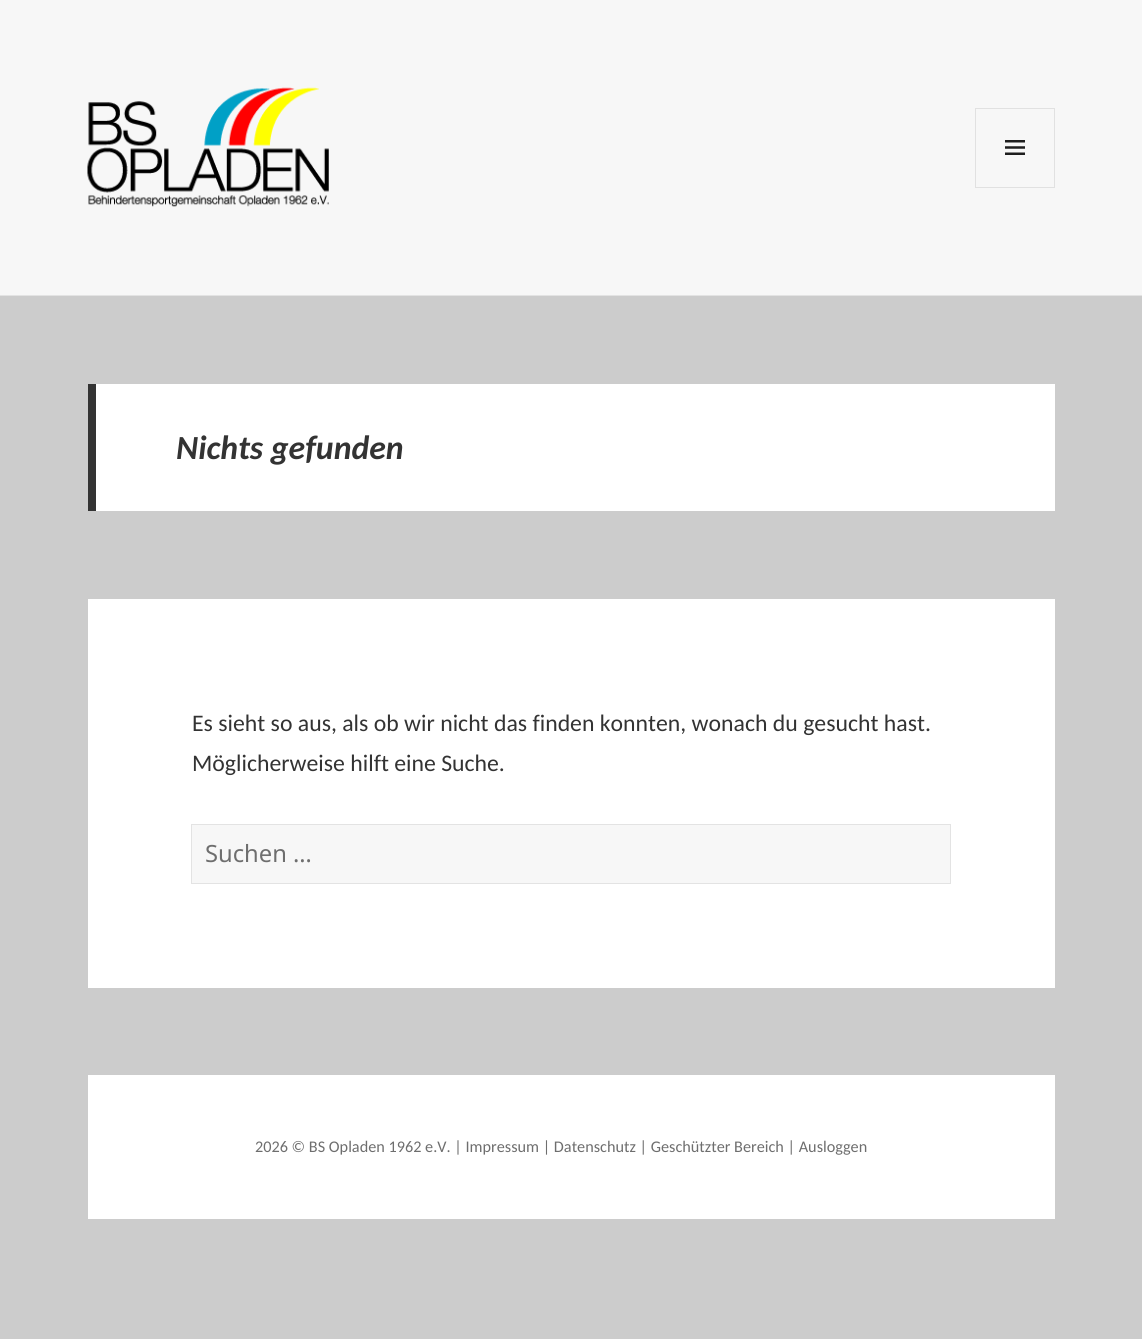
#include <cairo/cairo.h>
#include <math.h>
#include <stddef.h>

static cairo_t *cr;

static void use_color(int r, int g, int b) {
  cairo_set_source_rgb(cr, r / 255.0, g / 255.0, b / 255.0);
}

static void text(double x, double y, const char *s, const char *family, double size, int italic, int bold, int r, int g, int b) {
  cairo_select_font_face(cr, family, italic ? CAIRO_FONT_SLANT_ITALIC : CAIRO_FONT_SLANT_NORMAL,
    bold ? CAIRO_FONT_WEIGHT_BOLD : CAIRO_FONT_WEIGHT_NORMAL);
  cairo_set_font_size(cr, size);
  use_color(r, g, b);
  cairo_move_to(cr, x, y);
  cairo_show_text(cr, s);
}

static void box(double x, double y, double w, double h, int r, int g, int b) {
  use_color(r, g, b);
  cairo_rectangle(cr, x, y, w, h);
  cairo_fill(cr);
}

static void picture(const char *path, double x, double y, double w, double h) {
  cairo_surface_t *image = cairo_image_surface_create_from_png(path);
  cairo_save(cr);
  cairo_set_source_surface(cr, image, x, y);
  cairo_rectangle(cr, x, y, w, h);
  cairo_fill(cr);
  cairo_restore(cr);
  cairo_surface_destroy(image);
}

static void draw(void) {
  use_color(204, 204, 204);
  cairo_paint(cr);
  box(0, 0, 1142, 295, 247, 247, 247);
  box(0, 295, 1142, 1, 227, 227, 227);
  picture("img_01.png", 87, 87, 242, 120);
  cairo_rectangle(cr, 975.5, 108.5, 79, 79);
  use_color(225, 225, 225);
  cairo_set_line_width(cr, 1);
  cairo_stroke(cr);
  picture("img_02.png", 1005, 140, 20, 15);
  box(96, 384, 959, 127, 255, 255, 255);
  box(88, 384, 8, 127, 51, 51, 51);
  box(88, 599, 967, 389, 255, 255, 255);
  use_color(247, 247, 247);
  cairo_rectangle(cr, 191.5, 824.5, 759, 59);
  cairo_fill_preserve(cr);
  use_color(227, 227, 227);
  cairo_stroke(cr);
  box(88, 1075, 967, 144, 255, 255, 255);
  text(176, 459, "Nichts gefunden", "Carlito", 33.75, 1, 1, 51, 51, 51);
  text(192, 731, "Es sieht so aus, als ob wir nicht das finden konnten, wonach du gesucht hast.", "Carlito", 23.75, 0, 0, 51, 51, 51);
  text(192, 771, "Möglicherweise hilft eine Suche.", "Carlito", 23.75, 0, 0, 51, 51, 51);
  text(205, 862, "Suchen …", "Noto Sans", 23.75, 0, 0, 110, 110, 110);
  text(255, 1152, "2026 © BS Opladen 1962 e.V. | Impressum | Datenschutz | Geschützter Bereich | Ausloggen", "Carlito", 16.25, 0, 0, 110, 110, 110);
}

int main(void) {
  cairo_surface_t *surface = cairo_image_surface_create(CAIRO_FORMAT_RGB24, 1142, 1339);
  cr = cairo_create(surface);
  cairo_font_options_t *options = cairo_font_options_create();
  cairo_font_options_set_hint_metrics(options, CAIRO_HINT_METRICS_OFF);
  cairo_font_options_set_hint_style(options, CAIRO_HINT_STYLE_NONE);
  cairo_set_font_options(cr, options);
  cairo_set_miter_limit(cr, 4);
  draw();
  cairo_surface_write_to_png(surface, "out.png");
  cairo_font_options_destroy(options);
  cairo_destroy(cr);
  cairo_surface_destroy(surface);
  return 0;
}
